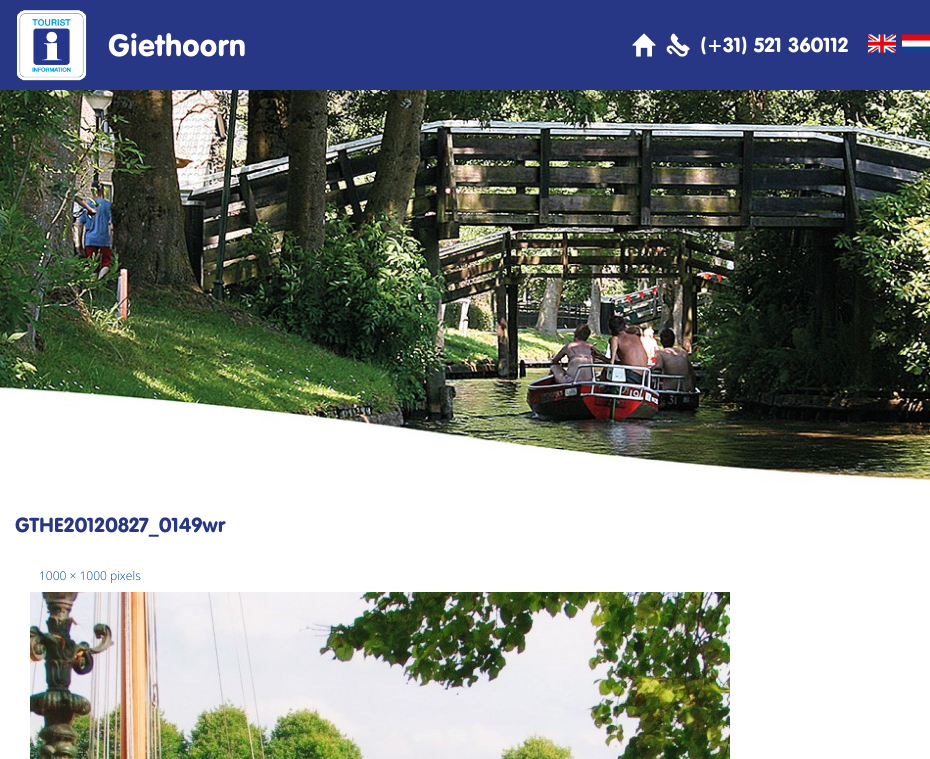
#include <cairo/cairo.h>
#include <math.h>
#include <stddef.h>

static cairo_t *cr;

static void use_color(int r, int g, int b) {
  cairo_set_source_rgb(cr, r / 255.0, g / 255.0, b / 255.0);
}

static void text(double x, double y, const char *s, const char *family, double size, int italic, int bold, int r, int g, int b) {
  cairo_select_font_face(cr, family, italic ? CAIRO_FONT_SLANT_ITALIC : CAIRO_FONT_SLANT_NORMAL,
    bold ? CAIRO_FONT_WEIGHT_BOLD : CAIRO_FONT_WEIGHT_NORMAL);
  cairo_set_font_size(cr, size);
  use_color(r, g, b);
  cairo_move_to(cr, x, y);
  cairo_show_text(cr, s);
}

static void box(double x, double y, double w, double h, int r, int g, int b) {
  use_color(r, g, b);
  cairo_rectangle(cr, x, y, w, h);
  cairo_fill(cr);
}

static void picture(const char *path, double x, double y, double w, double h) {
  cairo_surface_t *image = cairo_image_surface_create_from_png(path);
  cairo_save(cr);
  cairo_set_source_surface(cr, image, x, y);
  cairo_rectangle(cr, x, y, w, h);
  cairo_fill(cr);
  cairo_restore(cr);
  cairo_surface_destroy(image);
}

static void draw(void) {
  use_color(255, 255, 255);
  cairo_paint(cr);
  box(0, 0, 930, 90, 39, 54, 133);
  picture("img_01.png", 17, 10, 70, 71);
  picture("img_02.png", 632, 33, 24, 24);
  picture("img_03.png", 666, 33, 24, 24);
  picture("img_04.png", 868, 34, 28, 19);
  picture("img_05.png", 902, 34, 28, 19);
  picture("img_06.png", 0, 90, 930, 394);
  picture("img_07.png", 30, 592, 700, 167);
  text(108, 56, "Giethoorn", "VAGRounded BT", 30, 0, 0, 255, 255, 255);
  text(700, 52, "(+31) 521 360112", "VAGRounded BT", 20, 0, 0, 255, 255, 255);
  text(15, 532, "GTHE20120827_0149wr", "VAGRounded BT", 20, 0, 0, 39, 54, 133);
  text(39, 580, "1000 × 1000 pixels", "Open Sans Light", 12, 0, 0, 1, 68, 138);
}

int main(void) {
  cairo_surface_t *surface = cairo_image_surface_create(CAIRO_FORMAT_RGB24, 930, 759);
  cr = cairo_create(surface);
  cairo_font_options_t *options = cairo_font_options_create();
  cairo_font_options_set_hint_metrics(options, CAIRO_HINT_METRICS_OFF);
  cairo_font_options_set_hint_style(options, CAIRO_HINT_STYLE_NONE);
  cairo_set_font_options(cr, options);
  cairo_set_miter_limit(cr, 4);
  draw();
  cairo_surface_write_to_png(surface, "out.png");
  cairo_font_options_destroy(options);
  cairo_destroy(cr);
  cairo_surface_destroy(surface);
  return 0;
}
